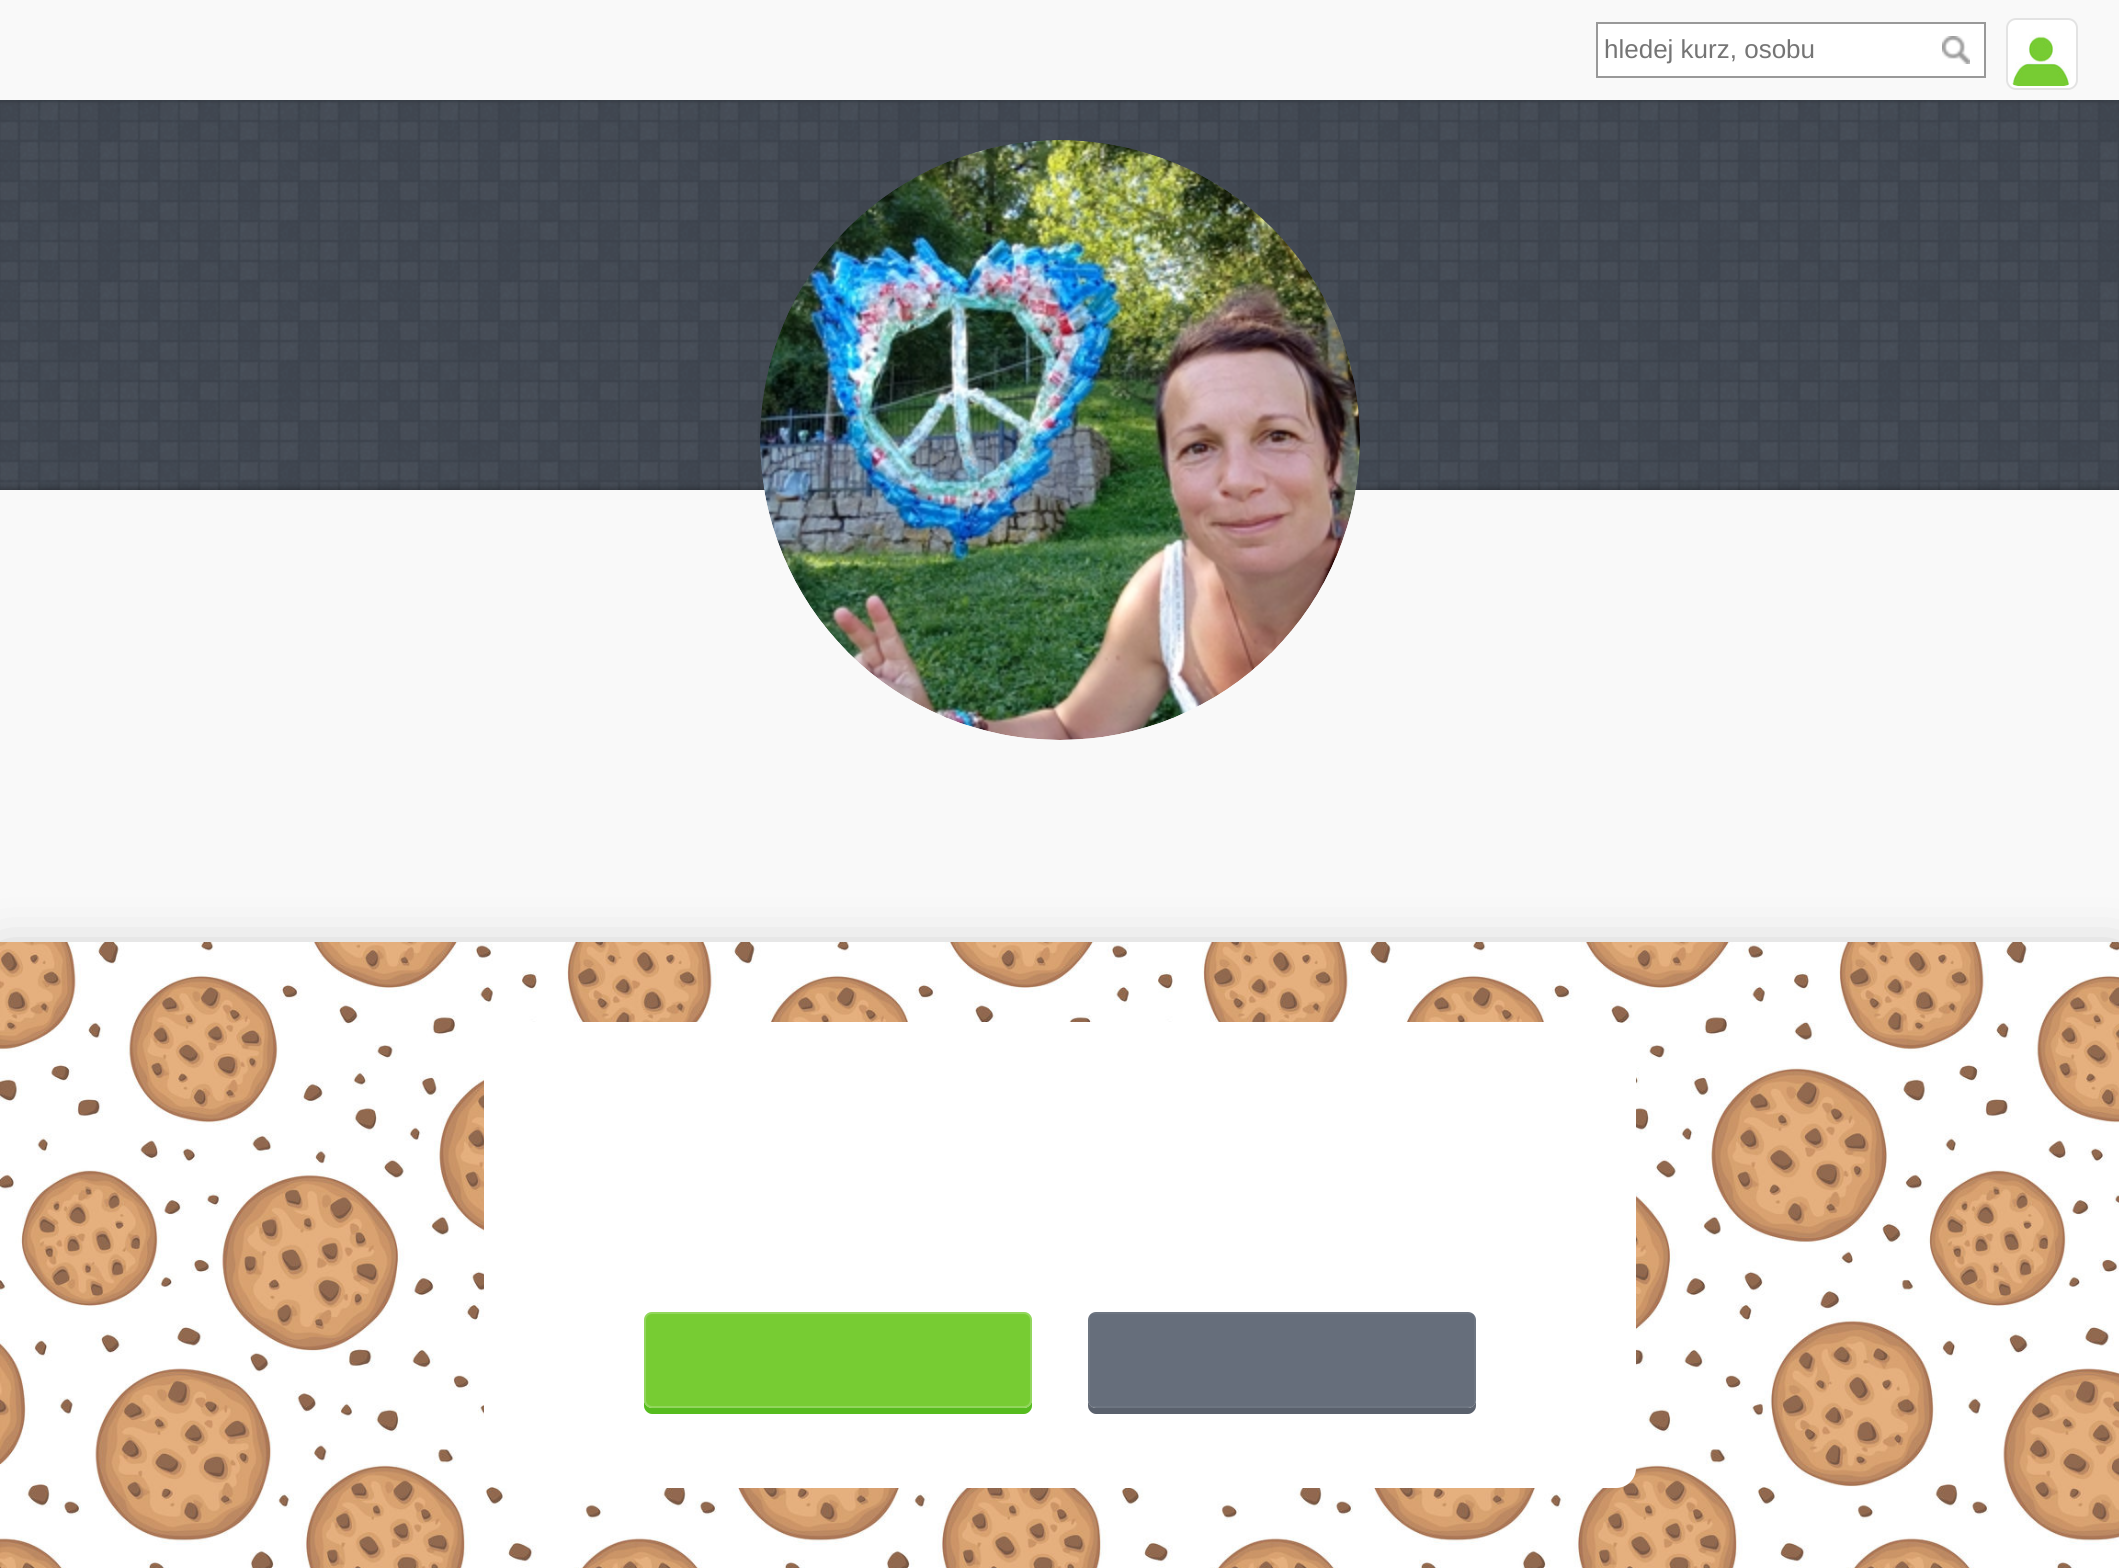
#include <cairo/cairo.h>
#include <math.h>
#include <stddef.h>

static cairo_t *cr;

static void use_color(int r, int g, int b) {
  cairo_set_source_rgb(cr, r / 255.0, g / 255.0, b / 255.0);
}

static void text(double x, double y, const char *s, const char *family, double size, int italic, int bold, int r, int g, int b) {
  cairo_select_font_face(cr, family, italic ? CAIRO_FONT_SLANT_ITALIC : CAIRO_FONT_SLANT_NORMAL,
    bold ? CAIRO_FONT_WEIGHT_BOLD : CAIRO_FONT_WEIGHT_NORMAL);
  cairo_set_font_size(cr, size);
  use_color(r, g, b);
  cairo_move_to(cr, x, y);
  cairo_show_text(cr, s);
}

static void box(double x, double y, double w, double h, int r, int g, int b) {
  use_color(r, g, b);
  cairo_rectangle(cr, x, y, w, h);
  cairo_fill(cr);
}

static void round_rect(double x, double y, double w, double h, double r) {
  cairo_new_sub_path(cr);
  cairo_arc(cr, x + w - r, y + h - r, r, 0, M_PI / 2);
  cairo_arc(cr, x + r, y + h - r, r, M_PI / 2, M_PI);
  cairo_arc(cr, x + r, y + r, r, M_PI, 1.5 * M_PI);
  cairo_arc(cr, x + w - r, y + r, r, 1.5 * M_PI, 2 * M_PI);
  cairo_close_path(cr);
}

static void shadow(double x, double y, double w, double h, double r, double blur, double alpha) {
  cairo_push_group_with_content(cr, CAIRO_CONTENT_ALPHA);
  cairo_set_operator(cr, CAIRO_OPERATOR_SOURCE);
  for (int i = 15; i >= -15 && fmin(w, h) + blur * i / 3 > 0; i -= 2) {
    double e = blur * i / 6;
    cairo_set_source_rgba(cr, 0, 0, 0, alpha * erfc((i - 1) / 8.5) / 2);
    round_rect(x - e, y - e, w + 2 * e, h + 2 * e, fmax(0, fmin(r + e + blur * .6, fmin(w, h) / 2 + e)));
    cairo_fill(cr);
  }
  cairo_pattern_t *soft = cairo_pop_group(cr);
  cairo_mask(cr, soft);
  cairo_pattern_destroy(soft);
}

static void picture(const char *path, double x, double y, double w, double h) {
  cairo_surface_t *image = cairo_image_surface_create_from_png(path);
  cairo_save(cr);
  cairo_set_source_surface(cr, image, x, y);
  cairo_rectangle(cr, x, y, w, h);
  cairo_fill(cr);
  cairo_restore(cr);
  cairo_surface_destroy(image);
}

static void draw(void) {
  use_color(255, 255, 255);
  cairo_paint(cr);
  picture("img_01.png", 0, 100, 2119, 390);
  use_color(0, 0, 0);
  shadow(-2, -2, 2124, 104, 0, 2, 0.1);
  box(0, 0, 2119, 100, 249, 249, 249);
  box(1598, 24, 386, 52, 255, 255, 255);
  box(1596, 22, 390, 2, 153, 153, 153);
  box(1596, 76, 334, 2, 153, 153, 153);
  box(1596, 22, 2, 56, 153, 153, 153);
  picture("img_02.png", 1942, 36, 28, 28);
  box(1984, 22, 2, 56, 153, 153, 153);
  box(1930, 76, 56, 2, 153, 153, 153);
  use_color(255, 255, 255);
  round_rect(2007, 19, 70, 70, 9);
  cairo_fill_preserve(cr);
  use_color(227, 227, 227);
  cairo_stroke(cr);
  picture("img_03.png", 2010, 34, 61, 52);
  use_color(0, 0, 0);
  shadow(-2, 488, 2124, 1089, 0, 3, 0.3);
  box(0, 490, 2119, 452, 249, 249, 249);
  picture("img_04.png", 760, 140, 600, 600);
  use_color(2, 2, 3);
  shadow(0, 962, 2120, 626, 0, 30, 0.28);
  picture("img_05.png", 0, 942, 2119, 626);
  use_color(255, 255, 255);
  round_rect(484, 1022, 1152, 466, 20);
  cairo_fill(cr);
  use_color(86, 188, 30);
  cairo_new_path(cr);
  cairo_move_to(cr, 644, 1400);
  cairo_line_to(cr, 644, 1406);
  cairo_curve_to(cr, 644, 1410, 648, 1414, 652, 1414);
  cairo_line_to(cr, 1024, 1414);
  cairo_curve_to(cr, 1028, 1414, 1032, 1410, 1032, 1406);
  cairo_line_to(cr, 1032, 1400);
  cairo_curve_to(cr, 1032, 1404, 1028, 1408, 1024, 1408);
  cairo_line_to(cr, 652, 1408);
  cairo_curve_to(cr, 648, 1408, 644, 1404, 644, 1400);
  cairo_close_path(cr);
  cairo_fill(cr);
  use_color(119, 204, 51);
  round_rect(644, 1312, 388, 96, 8);
  cairo_fill(cr);
  round_rect(645, 1313, 386, 94, 7);
  cairo_set_source_rgba(cr, 1, 1, 1, 0.2);
  cairo_stroke(cr);
  use_color(90, 97, 109);
  cairo_new_path(cr);
  cairo_move_to(cr, 1088, 1400);
  cairo_line_to(cr, 1088, 1406);
  cairo_curve_to(cr, 1088, 1410, 1092, 1414, 1096, 1414);
  cairo_line_to(cr, 1468, 1414);
  cairo_curve_to(cr, 1472, 1414, 1476, 1410, 1476, 1406);
  cairo_line_to(cr, 1476, 1400);
  cairo_curve_to(cr, 1476, 1404, 1472, 1408, 1468, 1408);
  cairo_line_to(cr, 1096, 1408);
  cairo_curve_to(cr, 1092, 1408, 1088, 1404, 1088, 1400);
  cairo_close_path(cr);
  cairo_fill(cr);
  use_color(102, 110, 123);
  round_rect(1088, 1312, 388, 96, 8);
  cairo_fill(cr);
  cairo_rectangle(cr, 1089, 1313, 386, 94);
  cairo_set_source_rgba(cr, 1, 1, 1, 0.05);
  cairo_stroke(cr);
  text(1604, 58, "hledej kurz, osobu", "Liberation Sans", 26, 0, 0, 117, 117, 117);
}

int main(void) {
  cairo_surface_t *surface = cairo_image_surface_create(CAIRO_FORMAT_RGB24, 2119, 1568);
  cr = cairo_create(surface);
  cairo_font_options_t *options = cairo_font_options_create();
  cairo_font_options_set_hint_metrics(options, CAIRO_HINT_METRICS_OFF);
  cairo_font_options_set_hint_style(options, CAIRO_HINT_STYLE_NONE);
  cairo_set_font_options(cr, options);
  cairo_set_miter_limit(cr, 4);
  draw();
  cairo_surface_write_to_png(surface, "out.png");
  cairo_font_options_destroy(options);
  cairo_destroy(cr);
  cairo_surface_destroy(surface);
  return 0;
}
